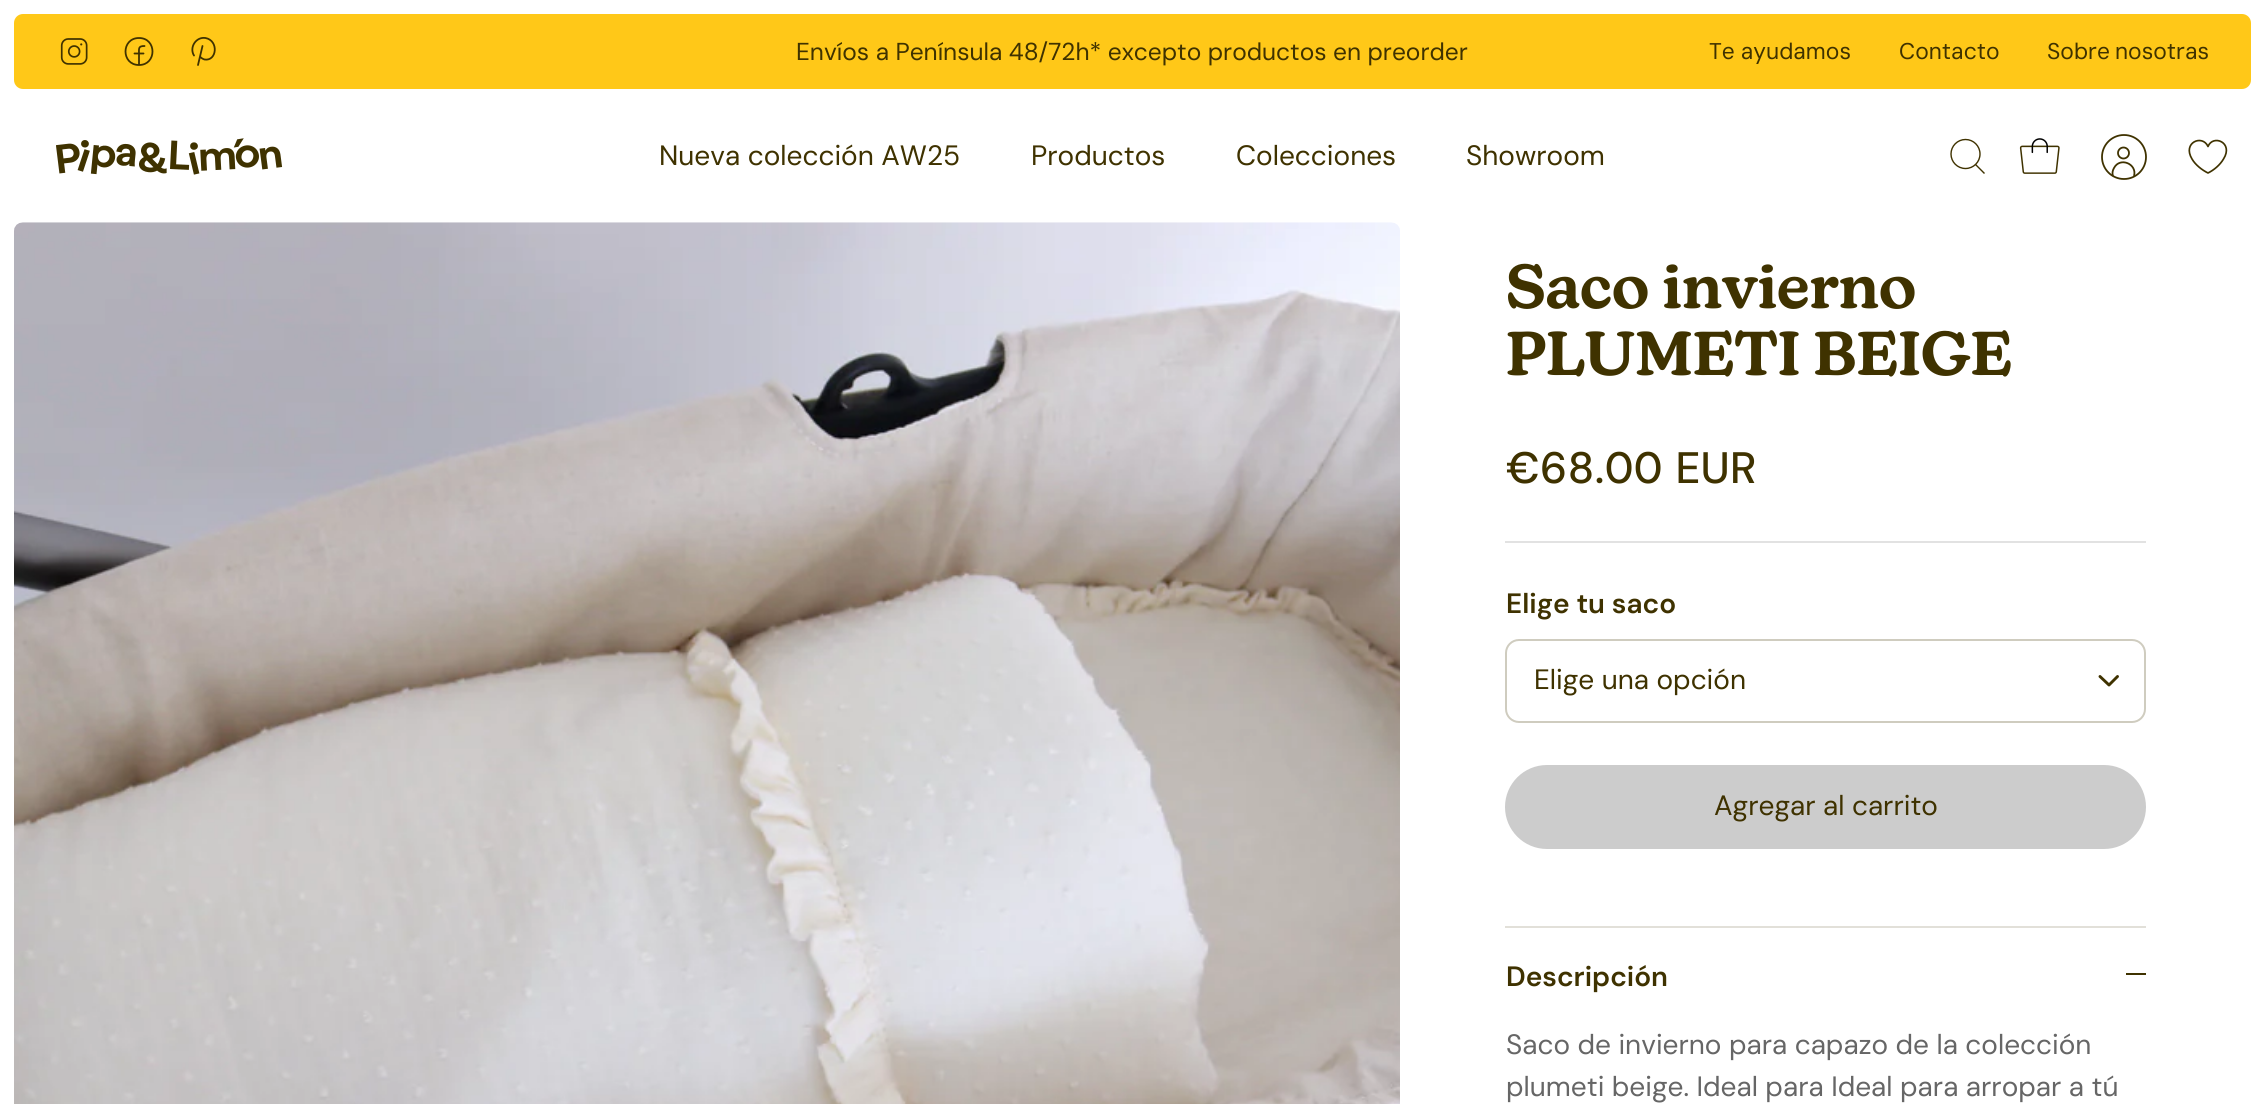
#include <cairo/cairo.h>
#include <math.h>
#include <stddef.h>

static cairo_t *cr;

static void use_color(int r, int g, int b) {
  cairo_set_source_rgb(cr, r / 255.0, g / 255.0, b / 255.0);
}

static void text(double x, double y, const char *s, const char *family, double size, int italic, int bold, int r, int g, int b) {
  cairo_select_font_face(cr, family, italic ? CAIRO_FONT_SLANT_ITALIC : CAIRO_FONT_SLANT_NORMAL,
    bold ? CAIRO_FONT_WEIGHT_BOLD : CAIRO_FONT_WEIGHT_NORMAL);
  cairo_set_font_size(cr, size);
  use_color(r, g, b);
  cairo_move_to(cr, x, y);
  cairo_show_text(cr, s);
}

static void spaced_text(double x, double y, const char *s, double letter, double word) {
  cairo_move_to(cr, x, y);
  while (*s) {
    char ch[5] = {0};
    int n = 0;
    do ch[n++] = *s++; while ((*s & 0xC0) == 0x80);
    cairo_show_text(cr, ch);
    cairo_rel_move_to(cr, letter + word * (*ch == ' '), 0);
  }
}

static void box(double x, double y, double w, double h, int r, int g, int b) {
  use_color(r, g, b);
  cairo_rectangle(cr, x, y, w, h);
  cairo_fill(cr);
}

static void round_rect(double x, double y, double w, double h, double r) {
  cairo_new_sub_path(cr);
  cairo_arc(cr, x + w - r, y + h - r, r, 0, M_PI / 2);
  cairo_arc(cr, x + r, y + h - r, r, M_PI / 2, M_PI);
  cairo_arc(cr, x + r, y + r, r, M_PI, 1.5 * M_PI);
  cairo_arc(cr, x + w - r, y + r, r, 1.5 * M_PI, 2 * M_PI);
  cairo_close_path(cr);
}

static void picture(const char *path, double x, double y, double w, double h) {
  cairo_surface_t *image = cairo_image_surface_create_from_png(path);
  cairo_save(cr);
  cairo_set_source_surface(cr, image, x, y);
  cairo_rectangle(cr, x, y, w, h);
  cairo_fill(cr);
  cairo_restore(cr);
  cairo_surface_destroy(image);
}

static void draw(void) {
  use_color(255, 255, 255);
  cairo_paint(cr);
  use_color(255, 200, 24);
  round_rect(14, 14, 2237, 75, 9);
  cairo_fill(cr);
  picture("img_01.png", 60, 38, 28, 27);
  cairo_new_path(cr);
  cairo_move_to(cr, 139, 65);
  cairo_curve_to(cr, 157, 65, 157, 38, 139, 38);
  cairo_curve_to(cr, 121, 38, 121, 65, 139, 65);
  cairo_close_path(cr);
  cairo_move_to(cr, 144.5, 46);
  cairo_curve_to(cr, 138, 46, 139, 48.5, 139, 54.5);
  cairo_line_to(cr, 139, 65);
  cairo_move_to(cr, 134.5, 53.5);
  cairo_line_to(cr, 143.5, 53.5);
  use_color(63, 50, 0);
  cairo_set_line_width(cr, 1.8);
  cairo_set_line_cap(cr, CAIRO_LINE_CAP_ROUND);
  cairo_set_line_join(cr, CAIRO_LINE_JOIN_ROUND);
  cairo_stroke(cr);
  cairo_new_path(cr);
  cairo_move_to(cr, 202.5, 46);
  cairo_line_to(cr, 198, 65);
  cairo_move_to(cr, 194, 55.5);
  cairo_curve_to(cr, 189, 47.5, 196, 36.5, 205.5, 38);
  cairo_curve_to(cr, 219, 40.5, 217, 61.5, 204.5, 59.5);
  cairo_curve_to(cr, 203, 59, 201, 58, 200, 56.5);
  cairo_stroke(cr);
  picture("img_02.png", 56, 138, 227, 37);
  cairo_arc(cr, 1965.5, 154, 14.5, 0, 2 * M_PI);
  cairo_set_line_width(cr, 1.4);
  cairo_set_line_cap(cr, CAIRO_LINE_CAP_BUTT);
  cairo_set_line_join(cr, CAIRO_LINE_JOIN_MITER);
  cairo_stroke(cr);
  cairo_new_path(cr);
  cairo_move_to(cr, 1976, 165);
  cairo_line_to(cr, 1984, 173);
  cairo_set_line_cap(cr, CAIRO_LINE_CAP_SQUARE);
  cairo_stroke(cr);
  picture("img_03.png", 2019, 138, 41, 36);
  cairo_new_path(cr);
  cairo_move_to(cr, 2134, 176);
  cairo_curve_to(cr, 2137.5, 164, 2120, 156.5, 2114, 168);
  cairo_curve_to(cr, 2112.5, 170.5, 2112, 173.5, 2113, 176);
  cairo_set_line_width(cr, 1.8);
  cairo_set_line_cap(cr, CAIRO_LINE_CAP_BUTT);
  cairo_stroke(cr);
  cairo_arc(cr, 2123.5, 153, 5.5, 0, 2 * M_PI);
  cairo_stroke(cr);
  cairo_arc(cr, 2124, 157, 22, 0, 2 * M_PI);
  cairo_stroke(cr);
  cairo_new_path(cr);
  cairo_move_to(cr, 2208, 173);
  cairo_curve_to(cr, 2202, 170, 2195.5, 165, 2192, 159);
  cairo_curve_to(cr, 2182, 142.5, 2202.5, 134, 2208, 146.5);
  cairo_curve_to(cr, 2213, 134, 2234, 142.5, 2223.5, 159);
  cairo_curve_to(cr, 2220, 165, 2214, 170, 2208, 173);
  cairo_close_path(cr);
  cairo_set_line_width(cr, 1.7);
  cairo_set_line_cap(cr, CAIRO_LINE_CAP_ROUND);
  cairo_set_line_join(cr, CAIRO_LINE_JOIN_ROUND);
  cairo_stroke(cr);
  picture("img_04.png", 14, 222, 1386, 882);
  box(1505, 541, 641, 2, 226, 226, 226);
  round_rect(1506, 640, 639, 82, 13);
  use_color(207, 204, 191);
  cairo_set_line_width(cr, 2);
  cairo_set_line_cap(cr, CAIRO_LINE_CAP_BUTT);
  cairo_set_line_join(cr, CAIRO_LINE_JOIN_MITER);
  cairo_stroke(cr);
  cairo_new_path(cr);
  cairo_move_to(cr, 2100, 676.5);
  cairo_line_to(cr, 2109, 685);
  cairo_line_to(cr, 2117.5, 676.5);
  use_color(63, 50, 0);
  cairo_set_line_width(cr, 2.9);
  cairo_set_line_cap(cr, CAIRO_LINE_CAP_ROUND);
  cairo_set_line_join(cr, CAIRO_LINE_JOIN_ROUND);
  cairo_stroke(cr);
  use_color(204, 204, 204);
  round_rect(1506, 766, 639, 82, 41);
  cairo_fill_preserve(cr);
  cairo_set_line_width(cr, 2);
  cairo_set_line_cap(cr, CAIRO_LINE_CAP_BUTT);
  cairo_set_line_join(cr, CAIRO_LINE_JOIN_MITER);
  cairo_stroke(cr);
  box(1505, 926, 641, 2, 226, 224, 217);
  box(2126, 973, 20, 2, 63, 50, 0);
  text(796, 60, "Envíos a Península 48/72h* excepto productos en preorder", "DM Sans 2", 24.5, 0, 0, 63, 50, 0);
  text(1709, 59, "Te ayudamos", "DM Sans", 22.75, 0, 0, 63, 50, 0);
  text(1899, 59, "Contacto", "DM Sans", 22.75, 0, 0, 63, 50, 0);
  spaced_text(2047, 59, "Sobre nosotras", 0, -1);
  text(659, 165, "Nueva colección AW25", "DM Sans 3", 28, 0, 0, 63, 50, 0);
  text(1031, 165, "Productos", "DM Sans 3", 28, 0, 0, 63, 50, 0);
  text(1236, 165, "Colecciones", "DM Sans 3", 28, 0, 0, 63, 50, 0);
  text(1466, 165, "Showroom", "DM Sans 3", 28, 0, 0, 63, 50, 0);
  text(1506, 308, "Saco invierno", "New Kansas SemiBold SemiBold", 60.75, 0, 0, 63, 50, 0);
  text(1506, 375, "PLUMETI BEIGE", "New Kansas SemiBold SemiBold", 60.75, 0, 0, 63, 50, 0);
  cairo_select_font_face(cr, "DM Sans Medium", CAIRO_FONT_SLANT_NORMAL, CAIRO_FONT_WEIGHT_NORMAL);
  cairo_set_font_size(cr, 44);
  spaced_text(1506, 483, "€68.00 EUR", 0, 1);
  text(1506, 613, "Elige tu saco", "DM Sans SemiBold", 28, 0, 0, 63, 50, 0);
  text(1534, 689, "Elige una opción", "DM Sans 3", 28, 0, 0, 63, 50, 0);
  text(1714, 815, "Agregar al carrito", "DM Sans 3", 28, 0, 0, 63, 50, 0);
  text(1506, 986, "Descripción", "DM Sans SemiBold", 28, 0, 0, 63, 50, 0);
  text(1506, 1054, "Saco de invierno para capazo de la colección", "DM Sans 3", 28, 0, 0, 102, 102, 102);
  text(1506, 1096, "plumeti beige. Ideal para Ideal para arropar a tú", "DM Sans 3", 28, 0, 0, 102, 102, 102);
}

int main(void) {
  cairo_surface_t *surface = cairo_image_surface_create(CAIRO_FORMAT_RGB24, 2264, 1104);
  cr = cairo_create(surface);
  cairo_font_options_t *options = cairo_font_options_create();
  cairo_font_options_set_hint_metrics(options, CAIRO_HINT_METRICS_OFF);
  cairo_font_options_set_hint_style(options, CAIRO_HINT_STYLE_NONE);
  cairo_set_font_options(cr, options);
  cairo_set_miter_limit(cr, 4);
  draw();
  cairo_surface_write_to_png(surface, "out.png");
  cairo_font_options_destroy(options);
  cairo_destroy(cr);
  cairo_surface_destroy(surface);
  return 0;
}
